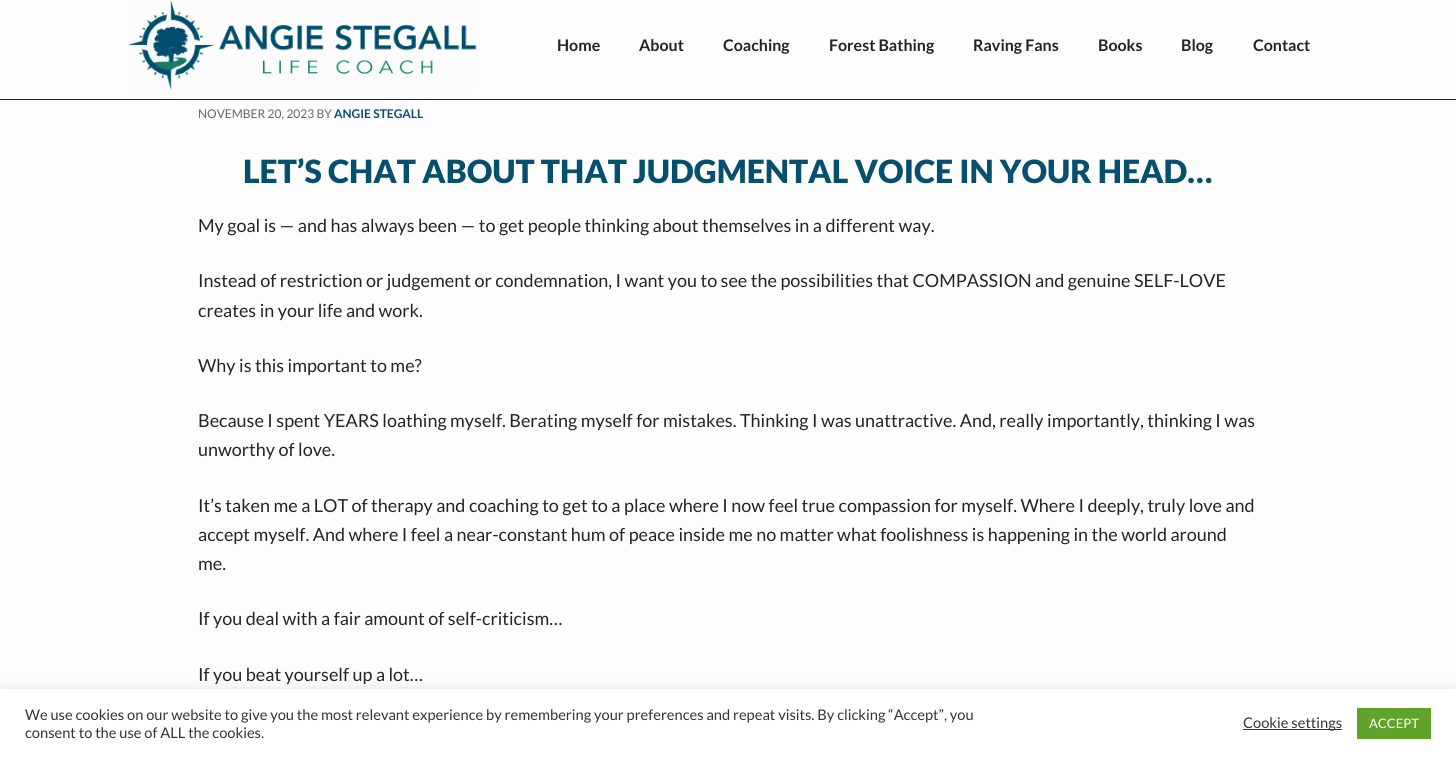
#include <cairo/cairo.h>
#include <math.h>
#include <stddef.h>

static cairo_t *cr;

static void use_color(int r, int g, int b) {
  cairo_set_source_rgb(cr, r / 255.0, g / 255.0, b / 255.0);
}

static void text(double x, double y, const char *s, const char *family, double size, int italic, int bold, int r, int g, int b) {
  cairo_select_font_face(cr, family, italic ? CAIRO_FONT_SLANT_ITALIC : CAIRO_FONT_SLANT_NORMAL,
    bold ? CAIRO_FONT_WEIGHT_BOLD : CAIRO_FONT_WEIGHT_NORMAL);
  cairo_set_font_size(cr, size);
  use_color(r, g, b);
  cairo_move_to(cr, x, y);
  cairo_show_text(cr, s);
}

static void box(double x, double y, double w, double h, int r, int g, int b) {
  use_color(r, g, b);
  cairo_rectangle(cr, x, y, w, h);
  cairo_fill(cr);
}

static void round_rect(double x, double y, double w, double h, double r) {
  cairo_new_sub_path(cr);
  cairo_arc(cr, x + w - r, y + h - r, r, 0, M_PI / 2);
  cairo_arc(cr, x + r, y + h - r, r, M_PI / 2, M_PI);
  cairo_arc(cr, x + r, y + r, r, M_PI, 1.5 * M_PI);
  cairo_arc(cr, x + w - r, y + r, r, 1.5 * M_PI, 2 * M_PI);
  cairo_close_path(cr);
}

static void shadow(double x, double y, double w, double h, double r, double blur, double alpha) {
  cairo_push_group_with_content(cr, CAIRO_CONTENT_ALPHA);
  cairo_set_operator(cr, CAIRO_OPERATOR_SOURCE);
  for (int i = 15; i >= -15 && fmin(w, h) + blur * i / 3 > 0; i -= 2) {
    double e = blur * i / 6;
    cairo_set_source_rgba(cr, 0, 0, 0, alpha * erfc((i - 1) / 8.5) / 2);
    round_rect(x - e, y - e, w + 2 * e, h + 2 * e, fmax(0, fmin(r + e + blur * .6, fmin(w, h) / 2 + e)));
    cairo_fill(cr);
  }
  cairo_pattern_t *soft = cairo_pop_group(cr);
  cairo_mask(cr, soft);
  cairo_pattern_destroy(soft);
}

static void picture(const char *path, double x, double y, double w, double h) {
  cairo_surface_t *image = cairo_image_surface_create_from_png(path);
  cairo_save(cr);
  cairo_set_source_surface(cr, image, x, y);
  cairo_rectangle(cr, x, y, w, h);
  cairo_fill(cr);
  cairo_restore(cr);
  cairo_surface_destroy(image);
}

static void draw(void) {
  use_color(253, 253, 253);
  cairo_paint(cr);
  box(0, 99, 1456, 1, 37, 36, 34);
  picture("img_01.png", 128, 0, 349, 90);
  use_color(172, 171, 171);
  shadow(0, 688, 1456, 69, 0, 5, 0.3);
  box(0, 689, 1456, 69, 255, 255, 255);
  box(1243, 729, 99, 1, 51, 51, 51);
  box(1357, 708, 74, 31, 97, 162, 41);
  text(557, 51, "Home", "Lato", 16, 0, 1, 37, 36, 34);
  text(639, 51, "About", "Lato", 16, 0, 1, 37, 36, 34);
  text(723, 51, "Coaching", "Lato", 16, 0, 1, 37, 36, 34);
  text(829, 51, "Forest Bathing", "Lato", 16, 0, 1, 37, 36, 34);
  text(973, 51, "Raving Fans", "Lato", 16, 0, 1, 37, 36, 34);
  text(1098, 51, "Books", "Lato", 16, 0, 1, 37, 36, 34);
  text(1181, 51, "Blog", "Lato", 16, 0, 1, 37, 36, 34);
  text(1253, 51, "Contact", "Lato", 16, 0, 1, 37, 36, 34);
  text(198, 118, "NOVEMBER 20, 2023 BY", "Lato", 12, 0, 0, 102, 102, 102);
  text(334, 118, "ANGIE STEGALL", "Lato", 12, 0, 1, 6, 79, 109);
  text(243, 183, "LET’S CHAT ABOUT THAT JUDGMENTAL VOICE IN YOUR HEAD…", "Lato Black", 32, 0, 0, 6, 79, 109);
  text(198, 232, "My goal is — and has always been — to get people thinking about themselves in a different way.", "Lato", 18, 0, 0, 37, 36, 34);
  text(198, 287, "Instead of restriction or judgement or condemnation, I want you to see the possibilities that COMPASSION and genuine SELF-LOVE", "Lato", 18, 0, 0, 37, 36, 34);
  text(198, 317, "creates in your life and work.", "Lato", 18, 0, 0, 37, 36, 34);
  text(198, 372, "Why is this important to me?", "Lato", 18, 0, 0, 37, 36, 34);
  text(198, 427, "Because I spent YEARS loathing myself. Berating myself for mistakes. Thinking I was unattractive. And, really importantly, thinking I was", "Lato", 18, 0, 0, 37, 36, 34);
  text(198, 456, "unworthy of love.", "Lato", 18, 0, 0, 37, 36, 34);
  text(198, 512, "It’s taken me a LOT of therapy and coaching to get to a place where I now feel true compassion for myself. Where I deeply, truly love and", "Lato", 18, 0, 0, 37, 36, 34);
  text(198, 541, "accept myself. And where I feel a near-constant hum of peace inside me no matter what foolishness is happening in the world around", "Lato", 18, 0, 0, 37, 36, 34);
  text(198, 570, "me.", "Lato", 18, 0, 0, 37, 36, 34);
  text(198, 625, "If you deal with a fair amount of self-criticism…", "Lato", 18, 0, 0, 37, 36, 34);
  text(198, 681, "If you beat yourself up a lot…", "Lato", 18, 0, 0, 37, 36, 34);
  text(25, 720, "We use cookies on our website to give you the most relevant experience by remembering your preferences and repeat visits. By clicking “Accept”, you", "Lato", 14.67, 0, 0, 51, 51, 51);
  text(25, 738, "consent to the use of ALL the cookies.", "Lato", 14.67, 0, 0, 51, 51, 51);
  text(1243, 728, "Cookie settings", "Lato", 14.67, 0, 0, 51, 51, 51);
  text(1369, 728, "ACCEPT", "Lato", 13, 0, 0, 255, 255, 255);
}

int main(void) {
  cairo_surface_t *surface = cairo_image_surface_create(CAIRO_FORMAT_RGB24, 1456, 758);
  cr = cairo_create(surface);
  cairo_font_options_t *options = cairo_font_options_create();
  cairo_font_options_set_hint_metrics(options, CAIRO_HINT_METRICS_OFF);
  cairo_font_options_set_hint_style(options, CAIRO_HINT_STYLE_NONE);
  cairo_set_font_options(cr, options);
  cairo_set_miter_limit(cr, 4);
  draw();
  cairo_surface_write_to_png(surface, "out.png");
  cairo_font_options_destroy(options);
  cairo_destroy(cr);
  cairo_surface_destroy(surface);
  return 0;
}
